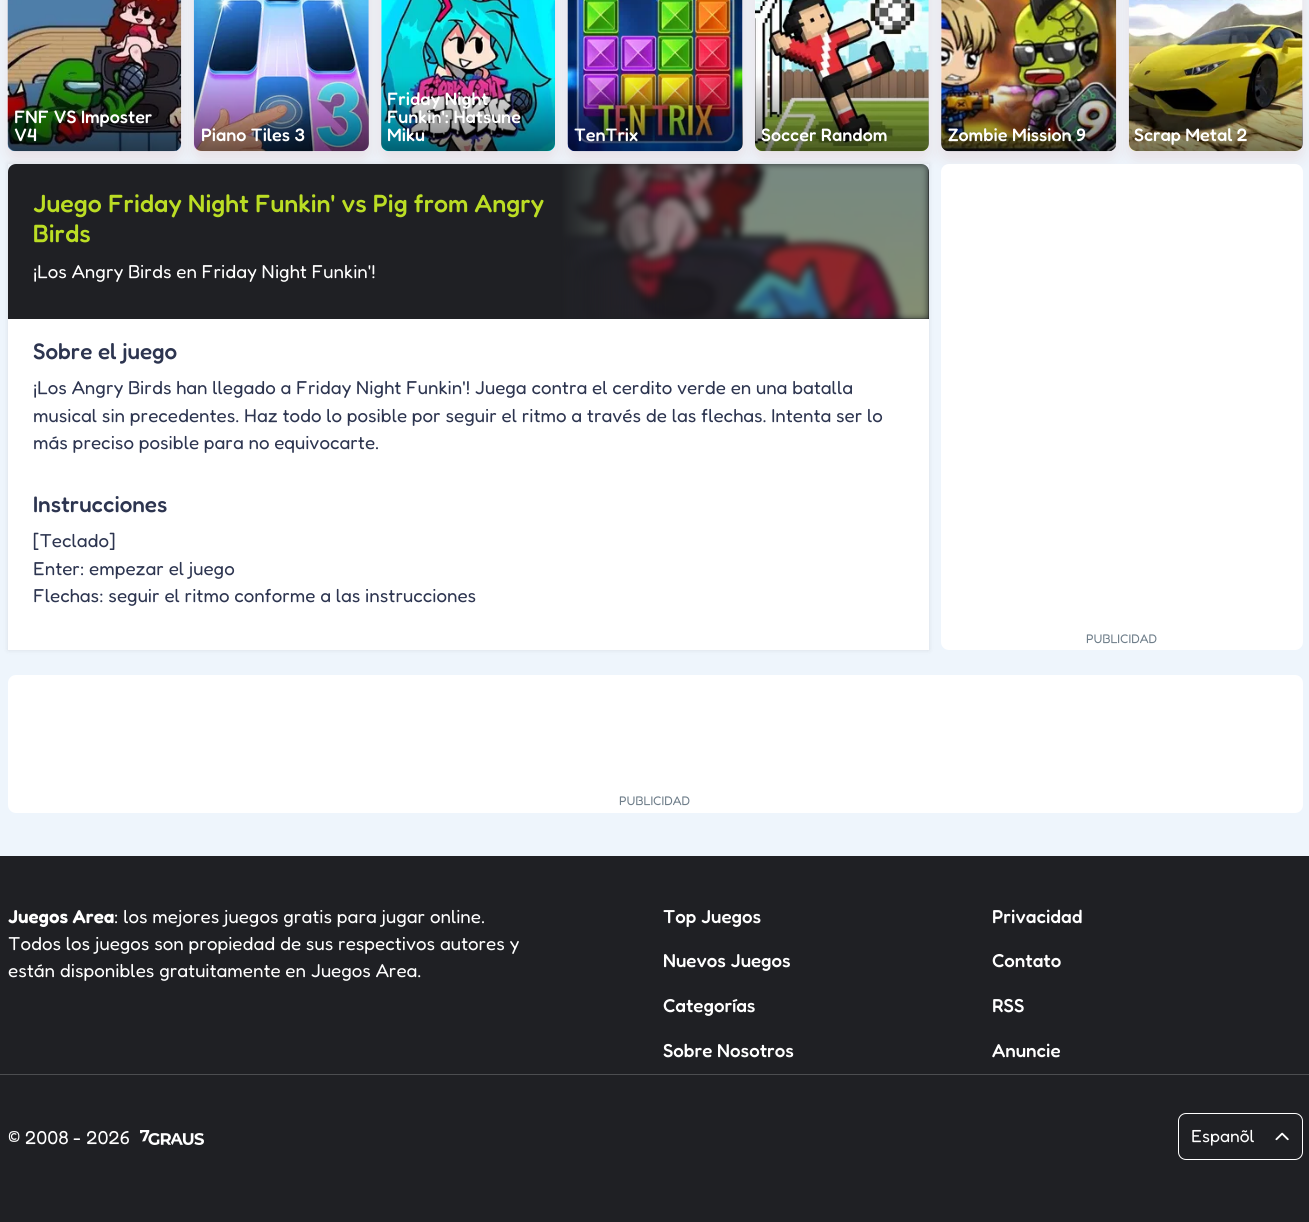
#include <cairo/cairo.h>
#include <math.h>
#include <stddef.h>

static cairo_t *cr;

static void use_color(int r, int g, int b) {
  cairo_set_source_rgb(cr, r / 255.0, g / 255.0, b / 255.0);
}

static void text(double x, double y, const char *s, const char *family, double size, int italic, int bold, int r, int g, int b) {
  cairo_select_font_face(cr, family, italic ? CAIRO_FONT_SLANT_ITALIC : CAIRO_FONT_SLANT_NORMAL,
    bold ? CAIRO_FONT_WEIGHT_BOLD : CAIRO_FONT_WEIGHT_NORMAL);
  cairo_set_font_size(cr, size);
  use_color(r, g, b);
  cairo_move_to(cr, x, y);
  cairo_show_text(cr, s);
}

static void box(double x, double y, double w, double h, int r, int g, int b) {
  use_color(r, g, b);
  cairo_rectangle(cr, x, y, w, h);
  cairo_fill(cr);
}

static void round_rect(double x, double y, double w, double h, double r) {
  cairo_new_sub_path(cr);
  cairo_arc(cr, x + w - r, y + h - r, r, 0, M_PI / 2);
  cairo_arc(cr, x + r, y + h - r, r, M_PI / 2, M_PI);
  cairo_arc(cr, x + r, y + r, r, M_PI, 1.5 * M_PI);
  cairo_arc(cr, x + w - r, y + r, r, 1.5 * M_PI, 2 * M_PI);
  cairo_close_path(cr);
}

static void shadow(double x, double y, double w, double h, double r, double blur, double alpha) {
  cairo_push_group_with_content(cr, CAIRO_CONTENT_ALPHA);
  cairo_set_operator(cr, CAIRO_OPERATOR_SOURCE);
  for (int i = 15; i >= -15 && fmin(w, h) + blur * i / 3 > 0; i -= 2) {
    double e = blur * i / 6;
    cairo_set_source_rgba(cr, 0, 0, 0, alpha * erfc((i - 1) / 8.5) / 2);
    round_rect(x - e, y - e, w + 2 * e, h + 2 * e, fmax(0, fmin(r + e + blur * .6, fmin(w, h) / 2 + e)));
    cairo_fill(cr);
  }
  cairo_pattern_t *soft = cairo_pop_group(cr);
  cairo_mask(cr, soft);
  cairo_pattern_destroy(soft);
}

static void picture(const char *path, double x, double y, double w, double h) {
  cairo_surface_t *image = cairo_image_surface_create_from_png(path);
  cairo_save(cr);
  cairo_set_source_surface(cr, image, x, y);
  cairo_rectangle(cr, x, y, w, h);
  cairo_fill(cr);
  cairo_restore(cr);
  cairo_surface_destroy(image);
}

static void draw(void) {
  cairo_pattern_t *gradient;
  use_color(238, 245, 252);
  cairo_paint(cr);
  use_color(211, 152, 152);
  shadow(8, -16, 173, 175, 8, 7.5, 0.24);
  picture("img_01.png", 7, 0, 175, 152);
  gradient = cairo_pattern_create_linear(94, 76, 94, 151);
  cairo_pattern_add_color_stop_rgba(gradient, 0, 0, 0, 0, 0);
  cairo_pattern_add_color_stop_rgba(gradient, 1, 0, 0, 0, 0.55);
  cairo_set_source(cr, gradient);
  cairo_pattern_destroy(gradient);
  cairo_new_path(cr);
  cairo_move_to(cr, 8, 76);
  cairo_line_to(cr, 181, 76);
  cairo_line_to(cr, 181, 143);
  cairo_curve_to(cr, 181, 147.5, 177.5, 151, 173, 151);
  cairo_line_to(cr, 16, 151);
  cairo_curve_to(cr, 11.5, 151, 8, 147.5, 8, 143);
  cairo_close_path(cr);
  cairo_fill(cr);
  use_color(211, 152, 152);
  shadow(194, -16, 175, 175, 8, 7.5, 0.24);
  picture("img_02.png", 193, 0, 176, 152);
  gradient = cairo_pattern_create_linear(281, 76, 281, 151);
  cairo_pattern_add_color_stop_rgba(gradient, 0, 0, 0, 0, 0);
  cairo_pattern_add_color_stop_rgba(gradient, 1, 0, 0, 0, 0.55);
  cairo_set_source(cr, gradient);
  cairo_pattern_destroy(gradient);
  cairo_new_path(cr);
  cairo_move_to(cr, 194, 76);
  cairo_line_to(cr, 369, 76);
  cairo_line_to(cr, 369, 143);
  cairo_curve_to(cr, 369, 147.5, 365.5, 151, 361, 151);
  cairo_line_to(cr, 202, 151);
  cairo_curve_to(cr, 197.5, 151, 194, 147.5, 194, 143);
  cairo_close_path(cr);
  cairo_fill(cr);
  use_color(211, 152, 152);
  shadow(381, -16, 174, 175, 8, 7.5, 0.24);
  picture("img_03.png", 381, 0, 174, 152);
  gradient = cairo_pattern_create_linear(468, 76, 468, 151);
  cairo_pattern_add_color_stop_rgba(gradient, 0, 0, 0, 0, 0);
  cairo_pattern_add_color_stop_rgba(gradient, 1, 0, 0, 0, 0.55);
  cairo_set_source(cr, gradient);
  cairo_pattern_destroy(gradient);
  cairo_new_path(cr);
  cairo_move_to(cr, 381, 76);
  cairo_line_to(cr, 555, 76);
  cairo_line_to(cr, 555, 143);
  cairo_curve_to(cr, 555, 147.5, 551.5, 151, 547, 151);
  cairo_line_to(cr, 389, 151);
  cairo_curve_to(cr, 384.5, 151, 381, 147.5, 381, 143);
  cairo_close_path(cr);
  cairo_fill(cr);
  use_color(211, 152, 152);
  shadow(568, -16, 175, 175, 8, 7.5, 0.24);
  picture("img_04.png", 567, 0, 176, 152);
  gradient = cairo_pattern_create_linear(655, 76, 655, 151);
  cairo_pattern_add_color_stop_rgba(gradient, 0, 0, 0, 0, 0);
  cairo_pattern_add_color_stop_rgba(gradient, 1, 0, 0, 0, 0.55);
  cairo_set_source(cr, gradient);
  cairo_pattern_destroy(gradient);
  cairo_new_path(cr);
  cairo_move_to(cr, 568, 76);
  cairo_line_to(cr, 743, 76);
  cairo_line_to(cr, 743, 143);
  cairo_curve_to(cr, 743, 147.5, 739.5, 151, 735, 151);
  cairo_line_to(cr, 576, 151);
  cairo_curve_to(cr, 571.5, 151, 568, 147.5, 568, 143);
  cairo_close_path(cr);
  cairo_fill(cr);
  use_color(211, 152, 152);
  shadow(755, -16, 174, 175, 8, 7.5, 0.24);
  picture("img_05.png", 755, 0, 174, 152);
  gradient = cairo_pattern_create_linear(842, 76, 842, 151);
  cairo_pattern_add_color_stop_rgba(gradient, 0, 0, 0, 0, 0);
  cairo_pattern_add_color_stop_rgba(gradient, 1, 0, 0, 0, 0.55);
  cairo_set_source(cr, gradient);
  cairo_pattern_destroy(gradient);
  cairo_new_path(cr);
  cairo_move_to(cr, 755, 76);
  cairo_line_to(cr, 929, 76);
  cairo_line_to(cr, 929, 143);
  cairo_curve_to(cr, 929, 147.5, 925.5, 151, 921, 151);
  cairo_line_to(cr, 763, 151);
  cairo_curve_to(cr, 758.5, 151, 755, 147.5, 755, 143);
  cairo_close_path(cr);
  cairo_fill(cr);
  use_color(211, 152, 152);
  shadow(941, -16, 175, 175, 8, 7.5, 0.24);
  picture("img_06.png", 941, 0, 176, 152);
  gradient = cairo_pattern_create_linear(1029, 76, 1029, 151);
  cairo_pattern_add_color_stop_rgba(gradient, 0, 0, 0, 0, 0);
  cairo_pattern_add_color_stop_rgba(gradient, 1, 0, 0, 0, 0.55);
  cairo_set_source(cr, gradient);
  cairo_pattern_destroy(gradient);
  cairo_new_path(cr);
  cairo_move_to(cr, 941, 76);
  cairo_line_to(cr, 1116, 76);
  cairo_line_to(cr, 1116, 143);
  cairo_curve_to(cr, 1116, 147.5, 1112.5, 151, 1108, 151);
  cairo_line_to(cr, 949, 151);
  cairo_curve_to(cr, 944.5, 151, 941, 147.5, 941, 143);
  cairo_close_path(cr);
  cairo_fill(cr);
  use_color(211, 152, 152);
  shadow(1129, -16, 174, 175, 8, 7.5, 0.24);
  picture("img_07.png", 1128, 0, 175, 152);
  gradient = cairo_pattern_create_linear(1216, 76, 1216, 151);
  cairo_pattern_add_color_stop_rgba(gradient, 0, 0, 0, 0, 0);
  cairo_pattern_add_color_stop_rgba(gradient, 1, 0, 0, 0, 0.55);
  cairo_set_source(cr, gradient);
  cairo_pattern_destroy(gradient);
  cairo_new_path(cr);
  cairo_move_to(cr, 1129, 76);
  cairo_line_to(cr, 1303, 76);
  cairo_line_to(cr, 1303, 143);
  cairo_curve_to(cr, 1303, 147.5, 1299.5, 151, 1295, 151);
  cairo_line_to(cr, 1137, 151);
  cairo_curve_to(cr, 1132.5, 151, 1129, 147.5, 1129, 143);
  cairo_close_path(cr);
  cairo_fill(cr);
  cairo_save(cr);
  cairo_set_fill_rule(cr, CAIRO_FILL_RULE_EVEN_ODD);
  cairo_new_path(cr);
  cairo_move_to(cr, 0, 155);
  cairo_line_to(cr, 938, 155);
  cairo_line_to(cr, 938, 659);
  cairo_line_to(cr, 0, 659);
  cairo_close_path(cr);
  cairo_move_to(cr, 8, 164);
  cairo_line_to(cr, 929, 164);
  cairo_line_to(cr, 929, 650);
  cairo_line_to(cr, 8, 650);
  cairo_close_path(cr);
  cairo_clip(cr);
  use_color(0, 0, 0);
  shadow(8, 164, 921, 486, 0, 2.5, 0.1);
  cairo_restore(cr);
  use_color(31, 32, 36);
  cairo_new_path(cr);
  cairo_move_to(cr, 16, 164);
  cairo_line_to(cr, 921, 164);
  cairo_curve_to(cr, 925.5, 164, 929, 167.5, 929, 172);
  cairo_line_to(cr, 929, 319);
  cairo_line_to(cr, 8, 319);
  cairo_line_to(cr, 8, 172);
  cairo_curve_to(cr, 8, 167.5, 11.5, 164, 16, 164);
  cairo_close_path(cr);
  cairo_fill(cr);
  picture("img_08.png", 560, 163, 369, 156);
  gradient = cairo_pattern_create_linear(560, 241, 671, 241);
  cairo_pattern_add_color_stop_rgba(gradient, 0, 0.122, 0.125, 0.141, 1);
  cairo_pattern_add_color_stop_rgba(gradient, 1, 0.122, 0.125, 0.141, 0);
  cairo_set_source(cr, gradient);
  cairo_pattern_destroy(gradient);
  cairo_rectangle(cr, 560, 164, 108, 155);
  cairo_fill(cr);
  box(8, 319, 921, 331, 255, 255, 255);
  round_rect(941, 164, 362, 486, 8);
  cairo_fill(cr);
  round_rect(8, 675, 1295, 138, 8);
  cairo_fill(cr);
  box(0, 856, 1309, 366, 31, 32, 36);
  box(0, 1074, 1309, 1, 76, 77, 80);
  picture("img_09.png", 140, 1130, 64, 15);
  round_rect(1178.5, 1113.5, 124, 46, 7.5);
  use_color(255, 255, 255);
  cairo_set_line_width(cr, 1);
  cairo_stroke(cr);
  picture("img_10.png", 1275, 1132, 14, 9);
  text(14, 123, "FNF VS Imposter", "Fredoka Light", 18, 0, 0, 255, 255, 255);
  text(14, 141, "V4", "Fredoka Light", 18, 0, 0, 255, 255, 255);
  text(201, 141, "Piano Tiles 3", "Fredoka Light", 18, 0, 0, 255, 255, 255);
  text(387, 105, "Friday Night", "Fredoka Light", 18, 0, 0, 255, 255, 255);
  text(387, 123, "Funkin': Hatsune", "Fredoka Light", 18, 0, 0, 255, 255, 255);
  text(387, 141, "Miku", "Fredoka Light", 18, 0, 0, 255, 255, 255);
  text(574, 141, "TenTrix", "Fredoka Light", 18, 0, 0, 255, 255, 255);
  text(761, 141, "Soccer Random", "Fredoka Light", 18, 0, 0, 255, 255, 255);
  text(948, 141, "Zombie Mission 9", "Fredoka Light", 18, 0, 0, 255, 255, 255);
  text(1134, 141, "Scrap Metal 2", "Fredoka Light", 18, 0, 0, 255, 255, 255);
  text(33, 212, "Juego Friday Night Funkin' vs Pig from Angry", "Fredoka Light", 25, 0, 0, 187, 221, 36);
  text(33, 242, "Birds", "Fredoka Light", 25, 0, 0, 187, 221, 36);
  text(33, 278, "¡Los Angry Birds en Friday Night Funkin'!", "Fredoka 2 Light", 18.75, 0, 0, 255, 255, 255);
  text(33, 359, "Sobre el juego", "Fredoka Light", 22.5, 0, 0, 45, 53, 80);
  text(33, 394, "¡Los Angry Birds han llegado a Friday Night Funkin'! Juega contra el cerdito verde en una batalla", "Fredoka 2 Light", 18.75, 0, 0, 45, 53, 80);
  text(33, 422, "musical sin precedentes. Haz todo lo posible por seguir el ritmo a través de las flechas. Intenta ser lo", "Fredoka 2 Light", 18.75, 0, 0, 45, 53, 80);
  text(33, 449, "más preciso posible para no equivocarte.", "Fredoka 2 Light", 18.75, 0, 0, 45, 53, 80);
  text(33, 512, "Instrucciones", "Fredoka Light", 22.5, 0, 0, 45, 53, 80);
  text(33, 547, "[Teclado]", "Fredoka 2 Light", 18.75, 0, 0, 45, 53, 80);
  text(33, 575, "Enter: empezar el juego", "Fredoka 2 Light", 18.75, 0, 0, 45, 53, 80);
  text(33, 602, "Flechas: seguir el ritmo conforme a las instrucciones", "Fredoka 2 Light", 18.75, 0, 0, 45, 53, 80);
  text(1086, 643, "PUBLICIDAD", "Fredoka 2 Light", 12.5, 0, 0, 111, 126, 138);
  text(619, 805, "PUBLICIDAD", "Fredoka 2 Light", 12.5, 0, 0, 111, 126, 138);
  text(8, 923, "Juegos Area", "Fredoka SemiBold", 18.75, 0, 0, 255, 255, 255);
  text(114, 923, ": los mejores juegos gratis para jugar online.", "Fredoka 2 Light", 18.75, 0, 0, 255, 255, 255);
  text(8, 950, "Todos los juegos son propiedad de sus respectivos autores y", "Fredoka 2 Light", 18.75, 0, 0, 255, 255, 255);
  text(8, 977, "están disponibles gratuitamente en Juegos Area.", "Fredoka 2 Light", 18.75, 0, 0, 255, 255, 255);
  text(663, 923, "Top Juegos", "Fredoka Light", 18.75, 0, 0, 255, 255, 255);
  text(992, 923, "Privacidad", "Fredoka Light", 18.75, 0, 0, 255, 255, 255);
  text(663, 967, "Nuevos Juegos", "Fredoka Light", 18.75, 0, 0, 255, 255, 255);
  text(992, 967, "Contato", "Fredoka Light", 18.75, 0, 0, 255, 255, 255);
  text(663, 1012, "Categorías", "Fredoka Light", 18.75, 0, 0, 255, 255, 255);
  text(992, 1012, "RSS", "Fredoka Light", 18.75, 0, 0, 255, 255, 255);
  text(663, 1057, "Sobre Nosotros", "Fredoka Light", 18.75, 0, 0, 255, 255, 255);
  text(992, 1057, "Anuncie", "Fredoka Light", 18.75, 0, 0, 255, 255, 255);
  text(8, 1144, "© 2008 - 2026", "Fredoka 2 Light", 18.75, 0, 0, 255, 255, 255);
  text(1191, 1142, "Espanõl", "Fredoka 2 Light", 17.5, 0, 0, 255, 255, 255);
}

int main(void) {
  cairo_surface_t *surface = cairo_image_surface_create(CAIRO_FORMAT_RGB24, 1309, 1222);
  cr = cairo_create(surface);
  cairo_font_options_t *options = cairo_font_options_create();
  cairo_font_options_set_hint_metrics(options, CAIRO_HINT_METRICS_OFF);
  cairo_font_options_set_hint_style(options, CAIRO_HINT_STYLE_NONE);
  cairo_set_font_options(cr, options);
  cairo_set_miter_limit(cr, 4);
  draw();
  cairo_surface_write_to_png(surface, "out.png");
  cairo_font_options_destroy(options);
  cairo_destroy(cr);
  cairo_surface_destroy(surface);
  return 0;
}
